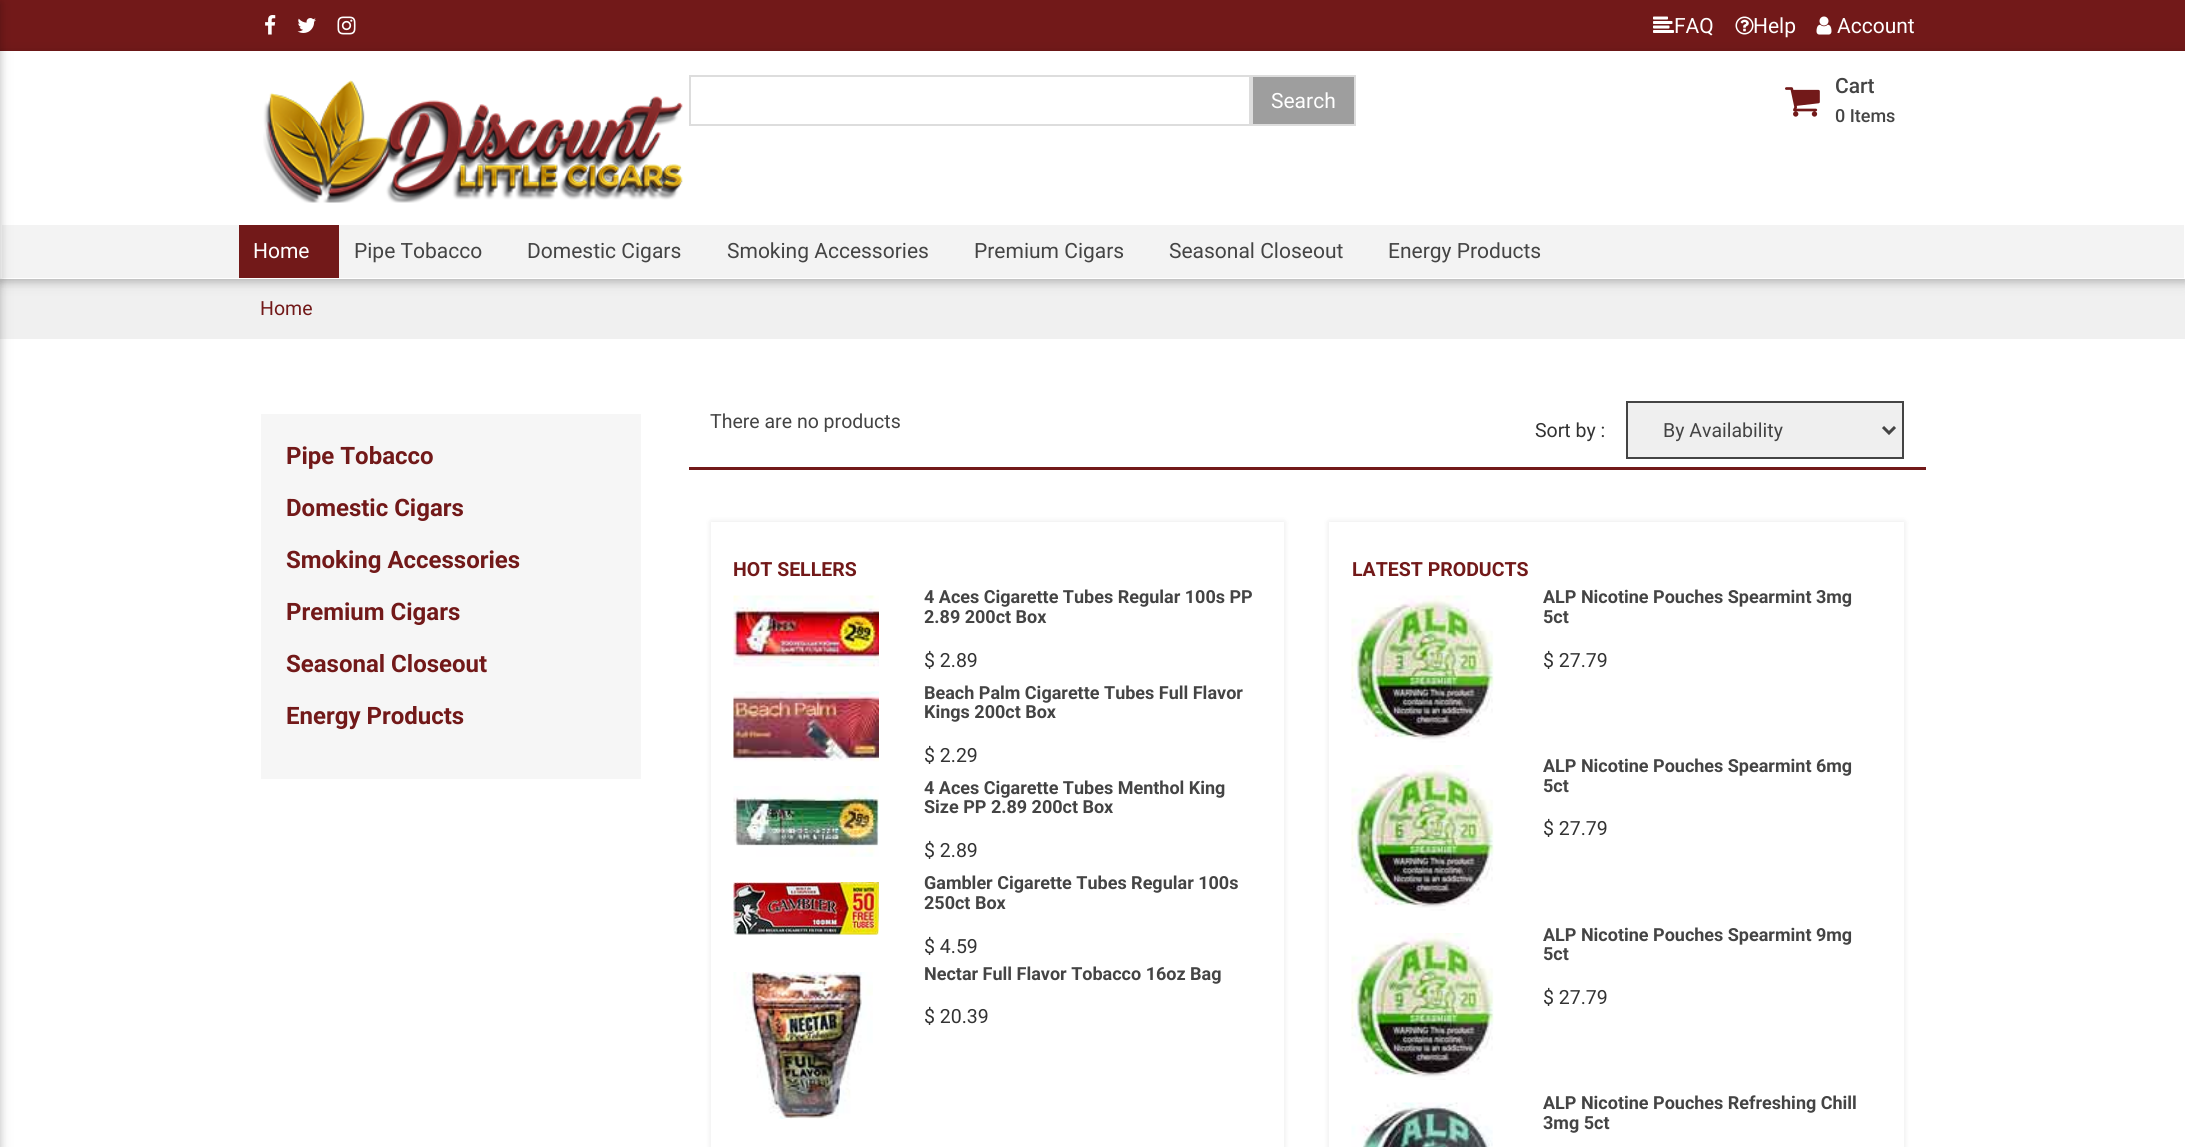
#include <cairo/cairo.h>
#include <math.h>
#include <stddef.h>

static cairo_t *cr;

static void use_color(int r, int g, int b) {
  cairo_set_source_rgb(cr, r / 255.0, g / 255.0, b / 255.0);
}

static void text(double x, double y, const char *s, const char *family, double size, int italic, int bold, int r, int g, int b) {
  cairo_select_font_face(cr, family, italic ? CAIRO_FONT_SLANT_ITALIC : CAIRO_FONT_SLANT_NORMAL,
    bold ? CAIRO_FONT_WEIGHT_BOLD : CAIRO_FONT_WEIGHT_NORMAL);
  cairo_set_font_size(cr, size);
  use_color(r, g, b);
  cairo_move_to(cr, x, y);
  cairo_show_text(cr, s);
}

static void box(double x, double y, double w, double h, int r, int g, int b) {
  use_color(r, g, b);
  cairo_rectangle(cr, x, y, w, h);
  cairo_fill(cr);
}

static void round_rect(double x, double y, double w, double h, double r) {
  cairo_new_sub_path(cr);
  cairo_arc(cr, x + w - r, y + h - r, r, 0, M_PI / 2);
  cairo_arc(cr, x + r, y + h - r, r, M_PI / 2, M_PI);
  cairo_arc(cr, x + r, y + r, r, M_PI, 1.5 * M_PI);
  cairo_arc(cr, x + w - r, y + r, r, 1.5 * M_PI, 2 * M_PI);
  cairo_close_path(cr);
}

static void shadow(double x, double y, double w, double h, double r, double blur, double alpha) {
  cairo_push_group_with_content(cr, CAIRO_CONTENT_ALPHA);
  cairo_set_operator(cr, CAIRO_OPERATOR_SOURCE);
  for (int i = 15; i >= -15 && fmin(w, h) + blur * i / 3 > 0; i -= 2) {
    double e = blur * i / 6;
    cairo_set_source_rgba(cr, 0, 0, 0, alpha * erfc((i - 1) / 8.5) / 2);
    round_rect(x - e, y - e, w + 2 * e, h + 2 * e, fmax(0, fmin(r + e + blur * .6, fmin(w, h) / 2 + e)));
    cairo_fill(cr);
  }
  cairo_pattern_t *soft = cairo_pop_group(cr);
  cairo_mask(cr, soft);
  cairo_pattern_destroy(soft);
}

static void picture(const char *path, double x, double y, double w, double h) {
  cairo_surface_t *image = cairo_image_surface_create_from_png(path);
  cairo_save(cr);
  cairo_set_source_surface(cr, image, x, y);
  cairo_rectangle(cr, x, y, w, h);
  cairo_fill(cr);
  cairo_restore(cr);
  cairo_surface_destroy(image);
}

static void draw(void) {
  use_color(255, 255, 255);
  cairo_paint(cr);
  box(0, 0, 2185, 51, 114, 25, 25);
  picture("img_01.png", 265, 15, 11, 20);
  picture("img_02.png", 297, 18, 19, 15);
  picture("img_03.png", 337, 16, 19, 19);
  picture("img_04.png", 1653, 16, 21, 17);
  picture("img_05.png", 1735, 16, 19, 19);
  picture("img_06.png", 1816, 16, 16, 19);
  box(0, 279, 2185, 60, 240, 240, 240);
  cairo_save(cr);
  cairo_set_fill_rule(cr, CAIRO_FILL_RULE_EVEN_ODD);
  cairo_new_path(cr);
  cairo_move_to(cr, 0, 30);
  cairo_line_to(cr, 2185, 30);
  cairo_line_to(cr, 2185, 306);
  cairo_line_to(cr, 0, 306);
  cairo_close_path(cr);
  cairo_move_to(cr, 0, 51);
  cairo_line_to(cr, 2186, 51);
  cairo_line_to(cr, 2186, 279);
  cairo_line_to(cr, 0, 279);
  cairo_close_path(cr);
  cairo_clip(cr);
  use_color(0, 0, 0);
  shadow(0, 54, 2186, 228, 0, 7.5, 0.12);
  cairo_restore(cr);
  cairo_save(cr);
  cairo_set_fill_rule(cr, CAIRO_FILL_RULE_EVEN_ODD);
  cairo_new_path(cr);
  cairo_move_to(cr, 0, 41);
  cairo_line_to(cr, 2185, 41);
  cairo_line_to(cr, 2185, 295);
  cairo_line_to(cr, 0, 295);
  cairo_close_path(cr);
  cairo_move_to(cr, 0, 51);
  cairo_line_to(cr, 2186, 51);
  cairo_line_to(cr, 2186, 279);
  cairo_line_to(cr, 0, 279);
  cairo_close_path(cr);
  cairo_clip(cr);
  use_color(0, 0, 0);
  shadow(0, 54, 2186, 228, 0, 4, 0.16);
  cairo_restore(cr);
  box(2, 225, 2182, 53, 243, 243, 243);
  use_color(0, 0, 0);
  shadow(-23, 3, 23, 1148, 0, 7.5, 0.12);
  shadow(-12, 3, 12, 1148, 0, 4, 0.16);
  picture("img_07.png", 263, 80, 420, 123);
  cairo_rectangle(cr, 690, 76, 560, 49);
  use_color(221, 221, 221);
  cairo_stroke(cr);
  use_color(158, 158, 158);
  cairo_rectangle(cr, 1252, 76, 103, 49);
  cairo_fill_preserve(cr);
  use_color(221, 221, 221);
  cairo_stroke(cr);
  picture("img_08.png", 1785, 87, 35, 30);
  box(239, 225, 100, 53, 114, 25, 25);
  box(261, 414, 380, 365, 246, 246, 246);
  box(689, 467, 1237, 3, 114, 25, 25);
  use_color(239, 239, 239);
  cairo_rectangle(cr, 1627, 402, 276, 56);
  cairo_fill_preserve(cr);
  use_color(68, 68, 68);
  cairo_stroke(cr);
  cairo_new_path(cr);
  cairo_move_to(cr, 1883, 427);
  cairo_line_to(cr, 1889, 433);
  cairo_line_to(cr, 1895, 427);
  cairo_set_line_width(cr, 3);
  cairo_stroke(cr);
  cairo_save(cr);
  cairo_set_fill_rule(cr, CAIRO_FILL_RULE_EVEN_ODD);
  cairo_new_path(cr);
  cairo_move_to(cr, 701, 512);
  cairo_line_to(cr, 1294, 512);
  cairo_line_to(cr, 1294, 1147);
  cairo_line_to(cr, 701, 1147);
  cairo_close_path(cr);
  cairo_move_to(cr, 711, 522);
  cairo_line_to(cr, 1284, 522);
  cairo_line_to(cr, 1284, 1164);
  cairo_line_to(cr, 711, 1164);
  cairo_close_path(cr);
  cairo_clip(cr);
  use_color(0, 0, 0);
  shadow(711, 522, 573, 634, 0, 3, 0.1);
  cairo_restore(cr);
  picture("img_09.png", 733, 595, 146, 72);
  picture("img_10.png", 733, 691, 146, 71);
  picture("img_11.png", 733, 786, 146, 71);
  picture("img_12.png", 733, 882, 146, 53);
  picture("img_13.png", 733, 972, 140, 147);
  cairo_save(cr);
  cairo_set_fill_rule(cr, CAIRO_FILL_RULE_EVEN_ODD);
  cairo_new_path(cr);
  cairo_move_to(cr, 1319, 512);
  cairo_line_to(cr, 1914, 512);
  cairo_line_to(cr, 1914, 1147);
  cairo_line_to(cr, 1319, 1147);
  cairo_close_path(cr);
  cairo_move_to(cr, 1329, 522);
  cairo_line_to(cr, 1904, 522);
  cairo_line_to(cr, 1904, 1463);
  cairo_line_to(cr, 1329, 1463);
  cairo_close_path(cr);
  cairo_clip(cr);
  use_color(0, 0, 0);
  shadow(1329, 522, 575, 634, 0, 3, 0.1);
  cairo_restore(cr);
  picture("img_14.png", 1351, 595, 143, 148);
  picture("img_15.png", 1351, 765, 143, 146);
  picture("img_16.png", 1351, 933, 143, 147);
  picture("img_17.png", 1351, 1102, 142, 45);
  text(1674, 33, "FAQ", "Roboto", 21, 0, 0, 255, 255, 255);
  text(1753, 33, "Help", "Roboto", 21, 0, 0, 255, 255, 255);
  text(1837, 33, "Account", "Roboto", 21, 0, 0, 255, 255, 255);
  text(1271, 108, "Search", "Roboto", 21, 0, 0, 255, 255, 255);
  text(1835, 93, "Cart", "Roboto Medium", 21, 0, 0, 68, 68, 68);
  text(1835, 122, "0 Items", "Roboto Medium", 18, 0, 0, 68, 68, 68);
  text(253, 258, "Home", "Roboto", 21, 0, 0, 255, 255, 255);
  text(354, 258, "Pipe Tobacco", "Roboto", 21, 0, 0, 68, 68, 68);
  text(527, 258, "Domestic Cigars", "Roboto", 21, 0, 0, 68, 68, 68);
  text(727, 258, "Smoking Accessories", "Roboto", 21, 0, 0, 68, 68, 68);
  text(974, 258, "Premium Cigars", "Roboto", 21, 0, 0, 68, 68, 68);
  text(1169, 258, "Seasonal Closeout", "Roboto", 21, 0, 0, 68, 68, 68);
  text(1388, 258, "Energy Products", "Roboto", 21, 0, 0, 68, 68, 68);
  text(260, 315, "Home", "Roboto", 19.5, 0, 0, 114, 25, 25);
  text(286, 464, "Pipe Tobacco", "Roboto", 24, 0, 1, 114, 25, 25);
  text(286, 516, "Domestic Cigars", "Roboto", 24, 0, 1, 114, 25, 25);
  text(286, 568, "Smoking Accessories", "Roboto", 24, 0, 1, 114, 25, 25);
  text(286, 620, "Premium Cigars", "Roboto", 24, 0, 1, 114, 25, 25);
  text(286, 672, "Seasonal Closeout", "Roboto", 24, 0, 1, 114, 25, 25);
  text(286, 724, "Energy Products", "Roboto", 24, 0, 1, 114, 25, 25);
  text(710, 428, "There are no products", "Roboto", 19.5, 0, 0, 68, 68, 68);
  text(1535, 437, "Sort by :", "Roboto", 19.5, 0, 0, 51, 51, 51);
  text(1663, 437, "By Availability", "Roboto", 19.5, 0, 0, 68, 68, 68);
  text(733, 576, "HOT SELLERS", "Roboto", 19.5, 0, 1, 114, 25, 25);
  text(924, 603, "4 Aces Cigarette Tubes Regular 100s PP", "Roboto", 18, 0, 1, 68, 68, 68);
  text(924, 623, "2.89 200ct Box", "Roboto", 18, 0, 1, 68, 68, 68);
  text(924, 667, "$ 2.89", "Roboto", 19.5, 0, 0, 51, 51, 51);
  text(924, 699, "Beach Palm Cigarette Tubes Full Flavor", "Roboto", 18, 0, 1, 68, 68, 68);
  text(924, 718, "Kings 200ct Box", "Roboto", 18, 0, 1, 68, 68, 68);
  text(924, 762, "$ 2.29", "Roboto", 19.5, 0, 0, 51, 51, 51);
  text(924, 794, "4 Aces Cigarette Tubes Menthol King", "Roboto", 18, 0, 1, 68, 68, 68);
  text(924, 813, "Size PP 2.89 200ct Box", "Roboto", 18, 0, 1, 68, 68, 68);
  text(924, 857, "$ 2.89", "Roboto", 19.5, 0, 0, 51, 51, 51);
  text(924, 889, "Gambler Cigarette Tubes Regular 100s", "Roboto", 18, 0, 1, 68, 68, 68);
  text(924, 909, "250ct Box", "Roboto", 18, 0, 1, 68, 68, 68);
  text(924, 953, "$ 4.59", "Roboto", 19.5, 0, 0, 51, 51, 51);
  text(924, 980, "Nectar Full Flavor Tobacco 16oz Bag", "Roboto", 18, 0, 1, 68, 68, 68);
  text(924, 1023, "$ 20.39", "Roboto", 19.5, 0, 0, 51, 51, 51);
  text(1352, 576, "LATEST PRODUCTS", "Roboto", 19.5, 0, 1, 114, 25, 25);
  text(1543, 603, "ALP Nicotine Pouches Spearmint 3mg", "Roboto", 18, 0, 1, 68, 68, 68);
  text(1543, 623, "5ct", "Roboto", 18, 0, 1, 68, 68, 68);
  text(1543, 667, "$ 27.79", "Roboto", 19.5, 0, 0, 51, 51, 51);
  text(1543, 772, "ALP Nicotine Pouches Spearmint 6mg", "Roboto", 18, 0, 1, 68, 68, 68);
  text(1543, 792, "5ct", "Roboto", 18, 0, 1, 68, 68, 68);
  text(1543, 835, "$ 27.79", "Roboto", 19.5, 0, 0, 51, 51, 51);
  text(1543, 941, "ALP Nicotine Pouches Spearmint 9mg", "Roboto", 18, 0, 1, 68, 68, 68);
  text(1543, 960, "5ct", "Roboto", 18, 0, 1, 68, 68, 68);
  text(1543, 1004, "$ 27.79", "Roboto", 19.5, 0, 0, 51, 51, 51);
  text(1543, 1109, "ALP Nicotine Pouches Refreshing Chill", "Roboto", 18, 0, 1, 68, 68, 68);
  text(1543, 1129, "3mg 5ct", "Roboto", 18, 0, 1, 68, 68, 68);
}

int main(void) {
  cairo_surface_t *surface = cairo_image_surface_create(CAIRO_FORMAT_RGB24, 2185, 1147);
  cr = cairo_create(surface);
  cairo_font_options_t *options = cairo_font_options_create();
  cairo_font_options_set_hint_metrics(options, CAIRO_HINT_METRICS_OFF);
  cairo_font_options_set_hint_style(options, CAIRO_HINT_STYLE_NONE);
  cairo_set_font_options(cr, options);
  cairo_set_miter_limit(cr, 4);
  draw();
  cairo_surface_write_to_png(surface, "out.png");
  cairo_font_options_destroy(options);
  cairo_destroy(cr);
  cairo_surface_destroy(surface);
  return 0;
}
